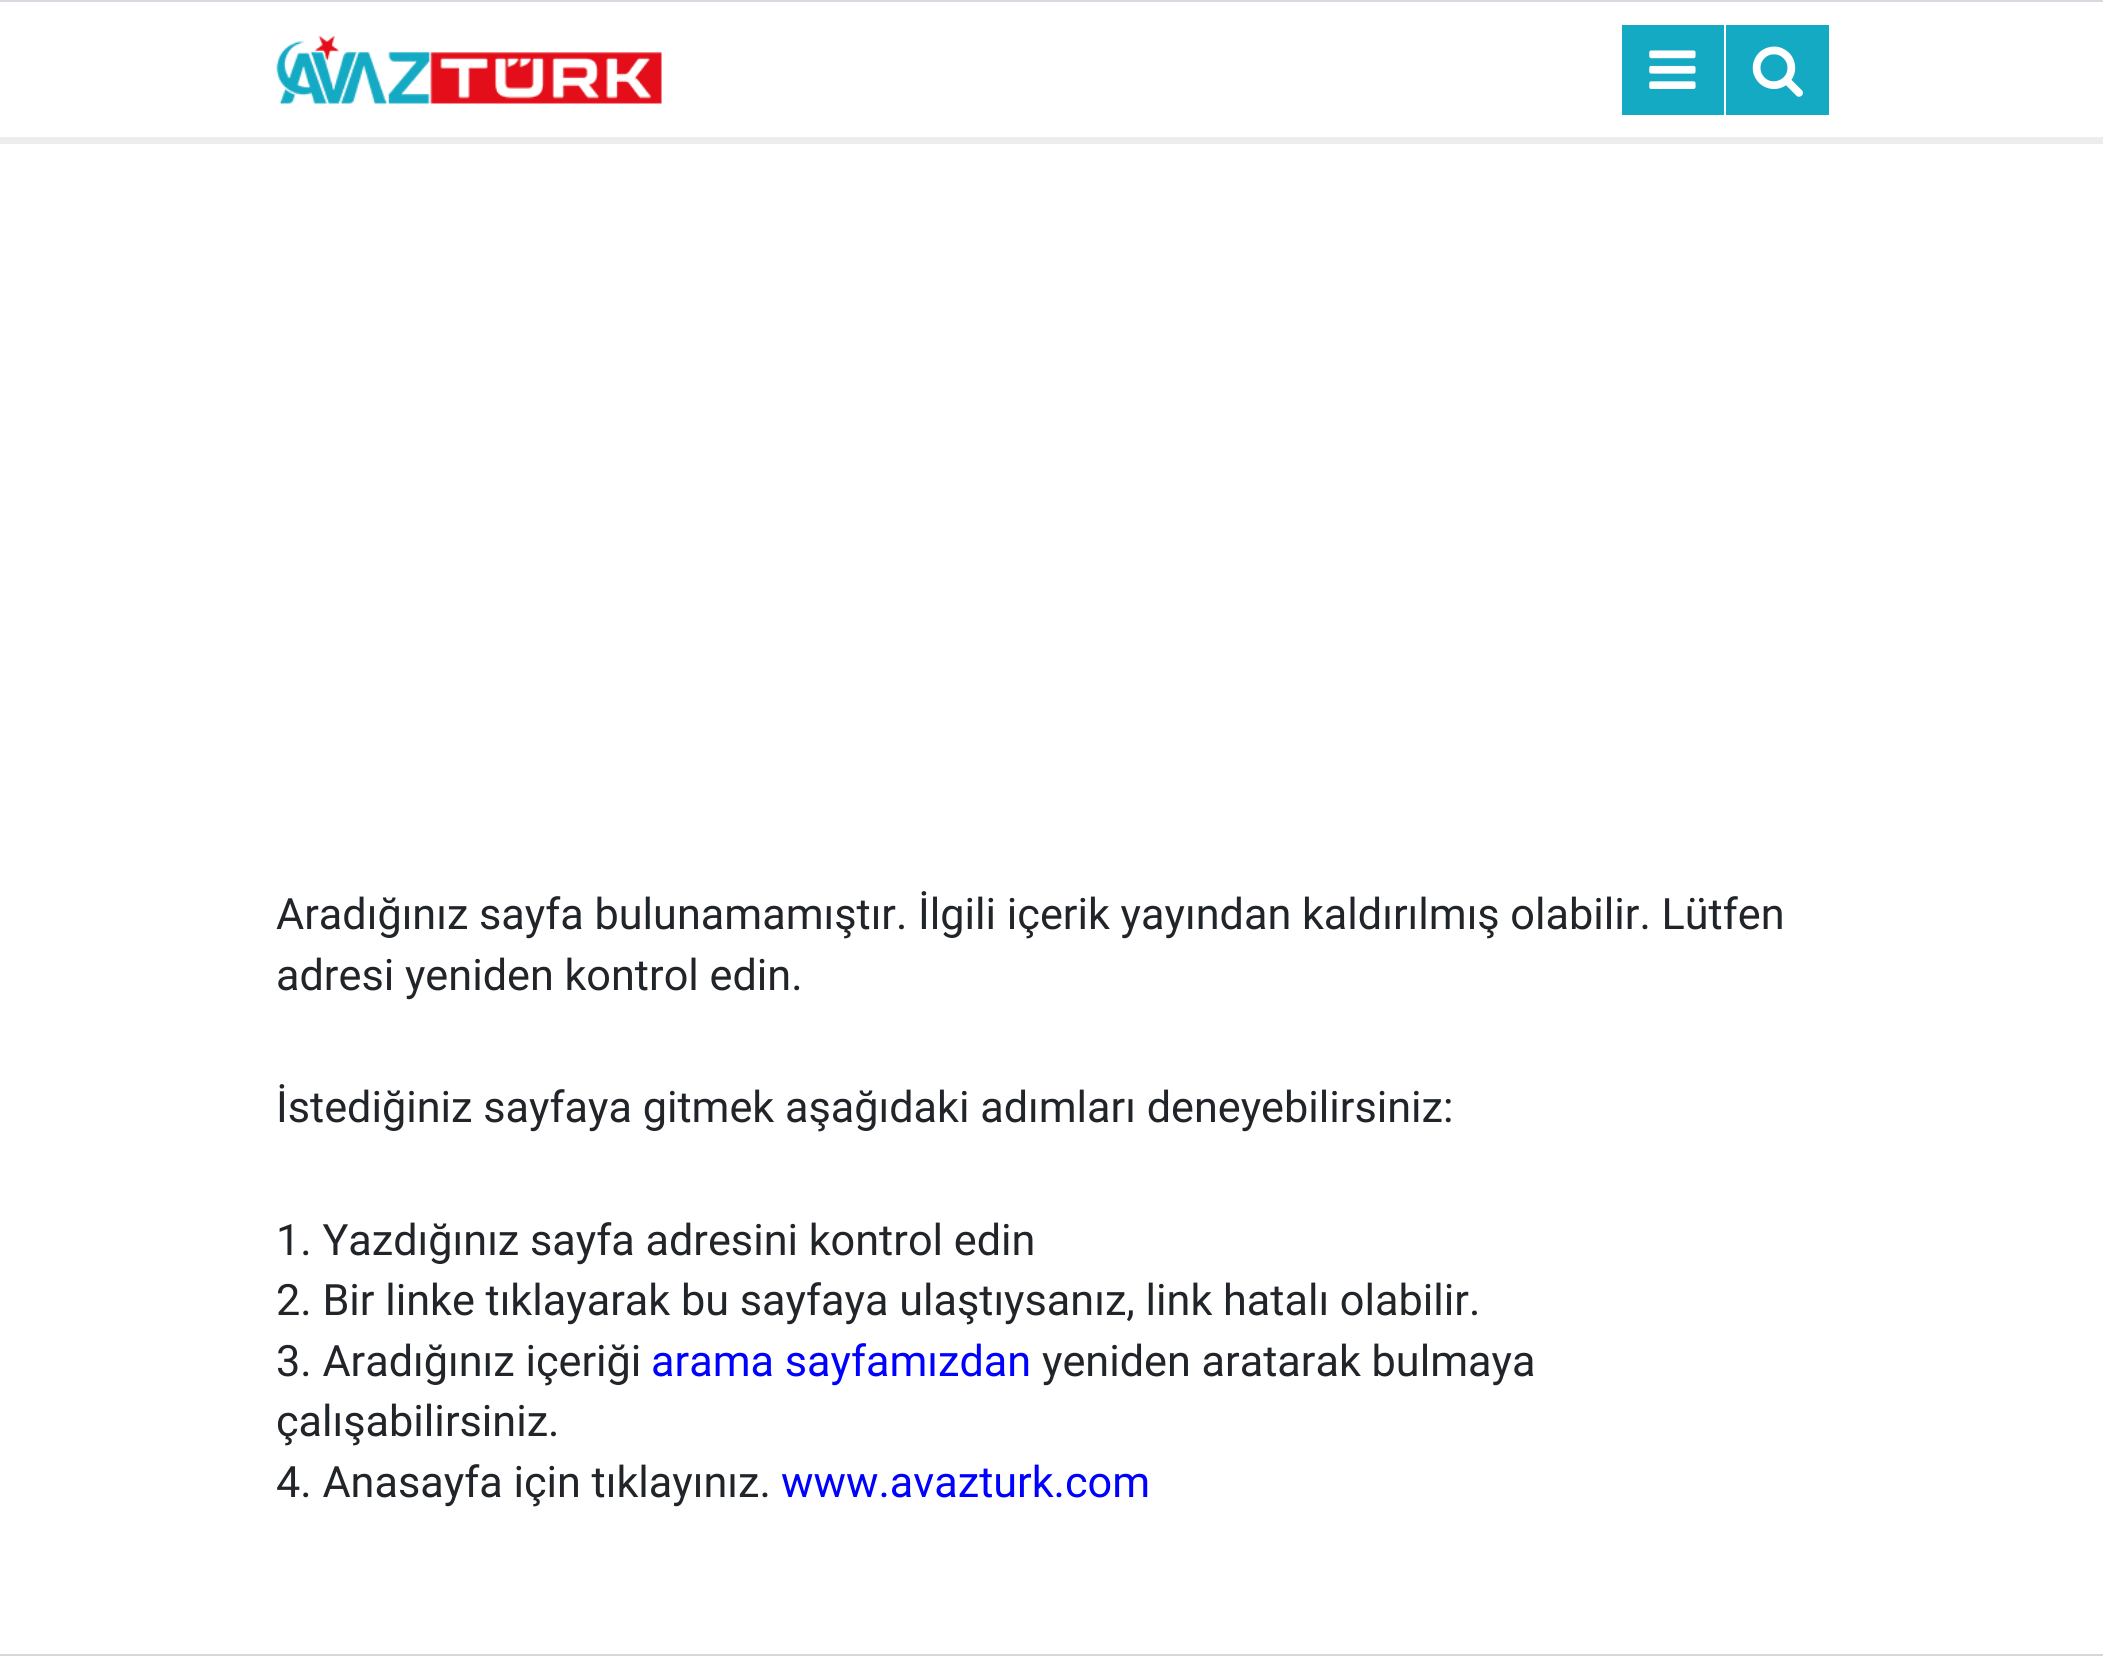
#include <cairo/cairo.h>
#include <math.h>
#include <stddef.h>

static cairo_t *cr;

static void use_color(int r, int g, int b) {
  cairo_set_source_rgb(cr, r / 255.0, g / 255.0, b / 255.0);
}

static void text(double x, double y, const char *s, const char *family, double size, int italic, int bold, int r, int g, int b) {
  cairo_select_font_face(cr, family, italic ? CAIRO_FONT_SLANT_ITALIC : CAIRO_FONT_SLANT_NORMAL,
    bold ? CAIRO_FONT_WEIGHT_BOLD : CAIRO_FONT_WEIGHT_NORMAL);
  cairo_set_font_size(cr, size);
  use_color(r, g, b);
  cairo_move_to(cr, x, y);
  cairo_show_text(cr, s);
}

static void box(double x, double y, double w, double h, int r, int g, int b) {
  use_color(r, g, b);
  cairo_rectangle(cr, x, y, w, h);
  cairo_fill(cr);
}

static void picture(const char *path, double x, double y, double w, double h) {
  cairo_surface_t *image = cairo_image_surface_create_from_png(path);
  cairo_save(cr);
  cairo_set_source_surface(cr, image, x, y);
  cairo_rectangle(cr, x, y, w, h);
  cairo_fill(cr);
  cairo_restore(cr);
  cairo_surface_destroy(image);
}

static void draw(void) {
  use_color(255, 255, 255);
  cairo_paint(cr);
  box(0, 0, 2103, 2, 215, 218, 225);
  box(0, 137, 2103, 7, 236, 237, 238);
  picture("img_01.png", 276, 36, 386, 68);
  box(1622, 25, 102, 90, 21, 170, 196);
  picture("img_02.png", 1649, 50, 47, 39);
  box(1726, 25, 103, 90, 21, 170, 196);
  picture("img_03.png", 1752, 46, 51, 51);
  box(0, 1654, 2103, 2, 214, 215, 217);
  text(276, 929, "Aradığınız sayfa bulunamamıştır. İlgili içerik yayından kaldırılmış olabilir. Lütfen", "Roboto", 43.2, 0, 0, 33, 37, 41);
  text(276, 990, "adresi yeniden kontrol edin.", "Roboto", 43.2, 0, 0, 33, 37, 41);
  text(276, 1122, "İstediğiniz sayfaya gitmek aşağıdaki adımları deneyebilirsiniz:", "Roboto", 43.2, 0, 0, 33, 37, 41);
  text(276, 1255, "1. Yazdığınız sayfa adresini kontrol edin", "Roboto", 43.2, 0, 0, 33, 37, 41);
  text(276, 1315, "2. Bir linke tıklayarak bu sayfaya ulaştıysanız, link hatalı olabilir.", "Roboto", 43.2, 0, 0, 33, 37, 41);
  text(276, 1376, "3. Aradığınız içeriği", "Roboto", 43.2, 0, 0, 33, 37, 41);
  text(651, 1376, "arama sayfamızdan", "Roboto", 43.2, 0, 0, 0, 0, 255);
  text(1042, 1376, "yeniden aratarak bulmaya", "Roboto", 43.2, 0, 0, 33, 37, 41);
  text(276, 1436, "çalışabilirsiniz.", "Roboto", 43.2, 0, 0, 33, 37, 41);
  text(276, 1497, "4. Anasayfa için tıklayınız.", "Roboto", 43.2, 0, 0, 33, 37, 41);
  text(781, 1497, "www.avazturk.com", "Roboto", 43.2, 0, 0, 0, 0, 255);
}

int main(void) {
  cairo_surface_t *surface = cairo_image_surface_create(CAIRO_FORMAT_RGB24, 2103, 1667);
  cr = cairo_create(surface);
  cairo_font_options_t *options = cairo_font_options_create();
  cairo_font_options_set_hint_metrics(options, CAIRO_HINT_METRICS_OFF);
  cairo_font_options_set_hint_style(options, CAIRO_HINT_STYLE_NONE);
  cairo_set_font_options(cr, options);
  cairo_set_miter_limit(cr, 4);
  draw();
  cairo_surface_write_to_png(surface, "out.png");
  cairo_font_options_destroy(options);
  cairo_destroy(cr);
  cairo_surface_destroy(surface);
  return 0;
}
